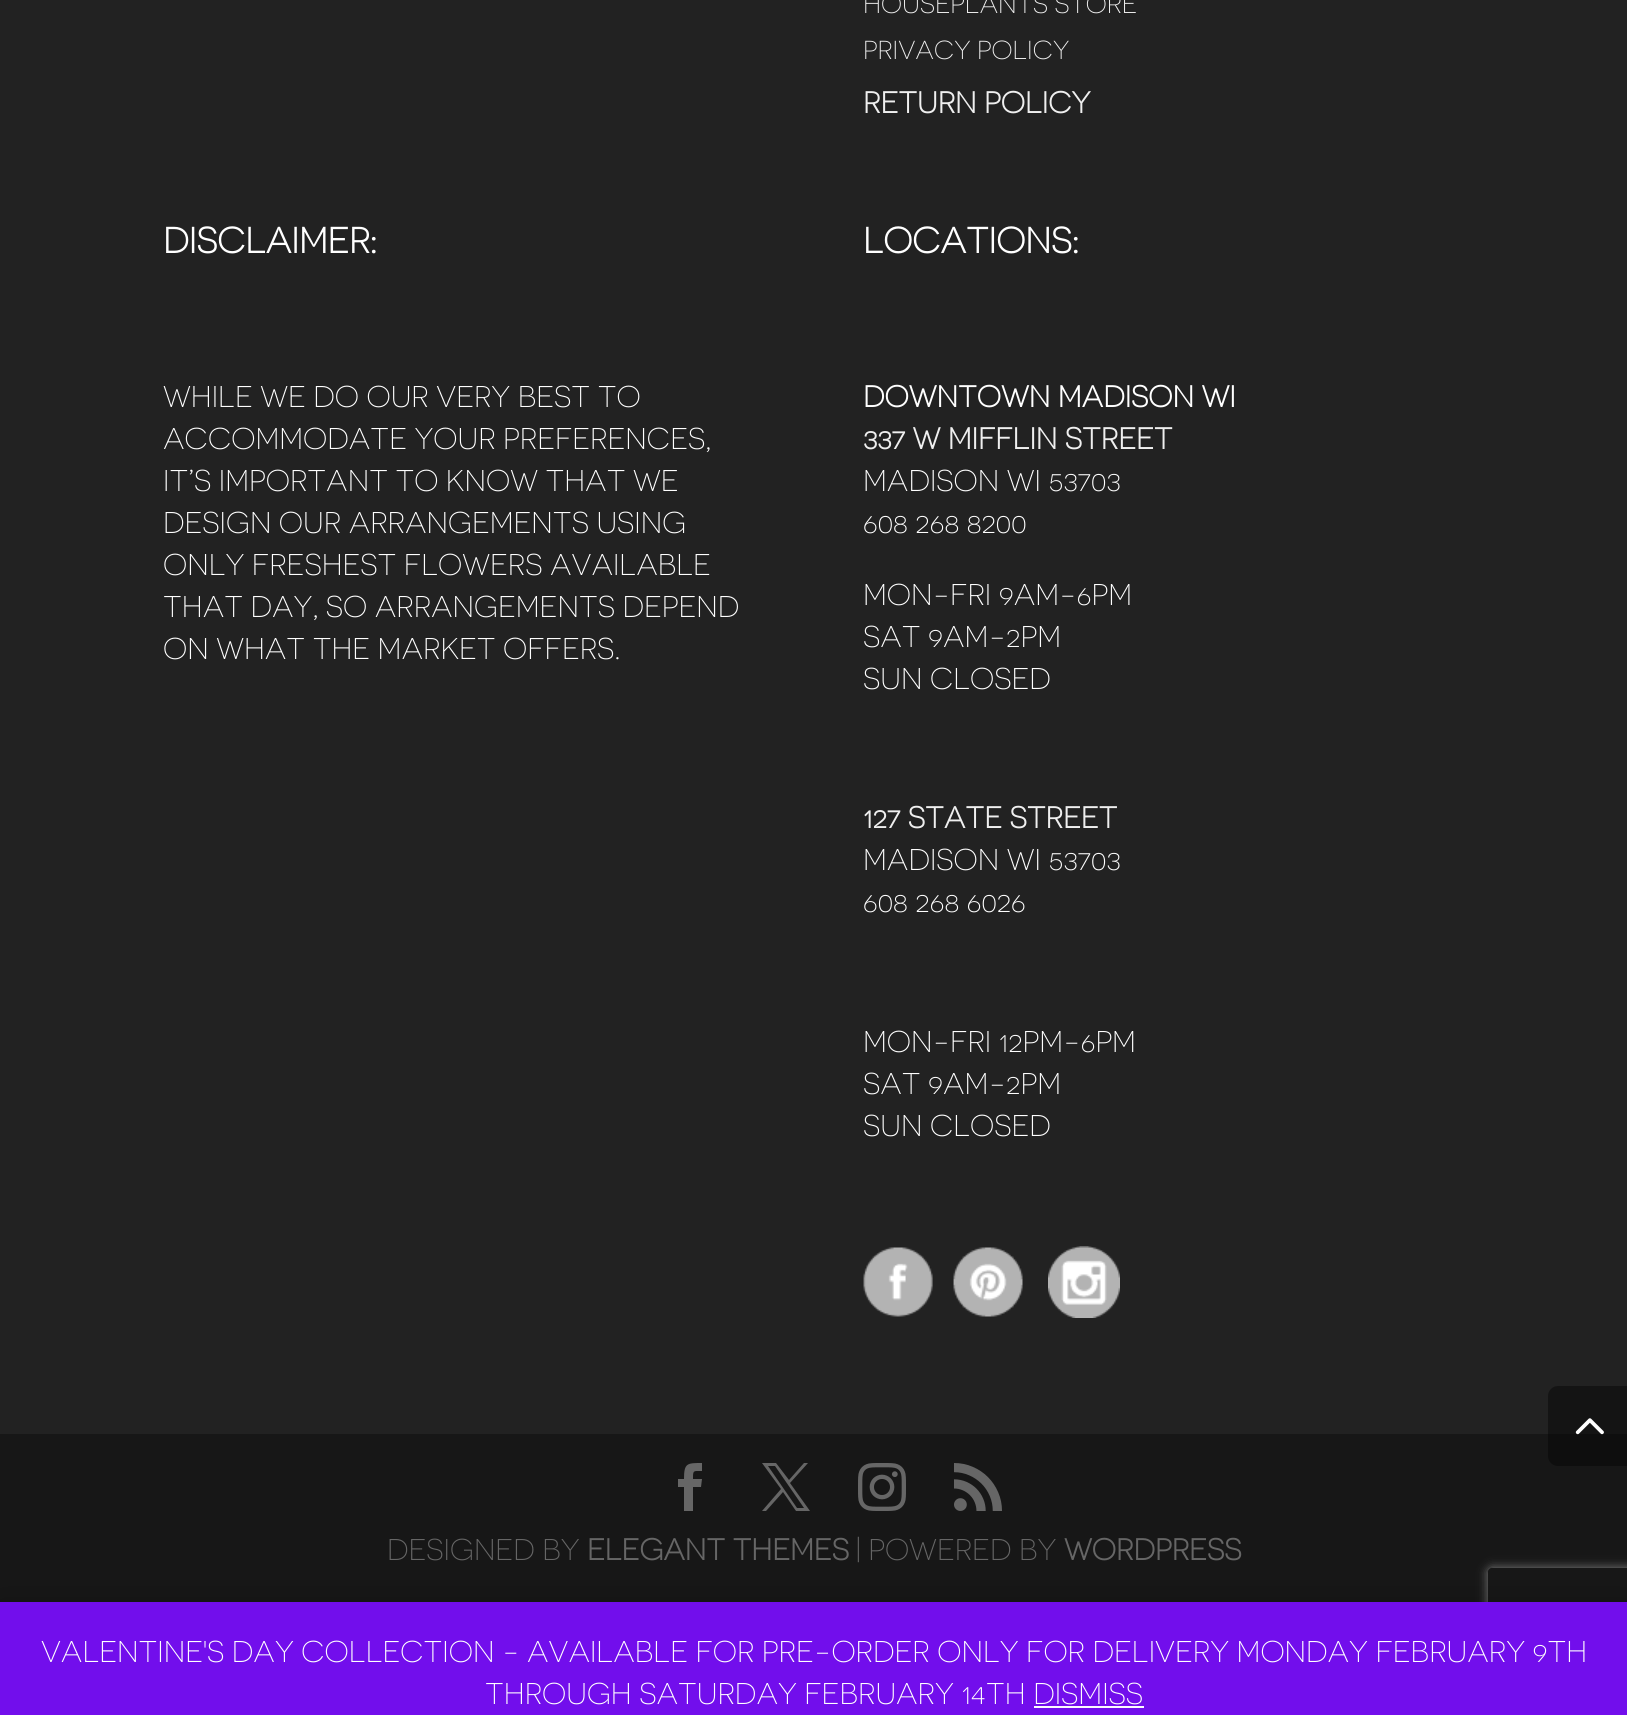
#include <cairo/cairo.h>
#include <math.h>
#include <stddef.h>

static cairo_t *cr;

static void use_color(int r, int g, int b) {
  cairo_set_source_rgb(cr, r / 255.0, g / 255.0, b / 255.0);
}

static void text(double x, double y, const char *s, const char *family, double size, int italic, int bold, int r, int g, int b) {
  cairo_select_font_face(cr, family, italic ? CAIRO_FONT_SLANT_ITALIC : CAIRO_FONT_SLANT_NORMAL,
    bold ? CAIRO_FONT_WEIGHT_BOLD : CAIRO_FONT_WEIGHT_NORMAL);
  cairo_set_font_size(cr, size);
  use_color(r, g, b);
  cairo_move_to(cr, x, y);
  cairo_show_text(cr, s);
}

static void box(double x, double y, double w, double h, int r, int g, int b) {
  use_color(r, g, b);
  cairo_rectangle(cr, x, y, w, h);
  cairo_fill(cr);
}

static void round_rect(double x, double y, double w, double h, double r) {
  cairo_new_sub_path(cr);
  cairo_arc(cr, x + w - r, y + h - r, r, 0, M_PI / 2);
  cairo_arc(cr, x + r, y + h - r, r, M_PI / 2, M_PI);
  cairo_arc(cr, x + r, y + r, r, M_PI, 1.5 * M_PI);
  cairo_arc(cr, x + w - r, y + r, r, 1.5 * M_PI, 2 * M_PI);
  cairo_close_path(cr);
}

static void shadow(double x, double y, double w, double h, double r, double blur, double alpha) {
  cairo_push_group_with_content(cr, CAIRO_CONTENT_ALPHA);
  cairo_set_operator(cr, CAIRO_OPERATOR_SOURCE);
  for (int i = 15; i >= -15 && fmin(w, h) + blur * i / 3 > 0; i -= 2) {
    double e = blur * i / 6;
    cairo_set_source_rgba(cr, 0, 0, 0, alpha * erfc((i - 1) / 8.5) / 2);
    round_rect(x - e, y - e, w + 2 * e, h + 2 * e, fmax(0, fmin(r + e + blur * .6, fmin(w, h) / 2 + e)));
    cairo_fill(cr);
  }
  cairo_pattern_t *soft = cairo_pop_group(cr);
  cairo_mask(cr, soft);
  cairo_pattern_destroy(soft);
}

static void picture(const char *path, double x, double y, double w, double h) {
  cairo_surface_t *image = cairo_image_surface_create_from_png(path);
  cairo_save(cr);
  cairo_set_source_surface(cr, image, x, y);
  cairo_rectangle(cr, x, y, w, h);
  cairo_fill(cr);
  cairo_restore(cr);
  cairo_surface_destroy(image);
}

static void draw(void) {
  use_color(34, 34, 34);
  cairo_paint(cr);
  picture("img_01.png", 863, 1247, 70, 70);
  picture("img_02.png", 953, 1247, 70, 70);
  picture("img_03.png", 1048, 1246, 72, 72);
  box(0, 1434, 1627, 168, 23, 23, 23);
  use_color(102, 102, 102);
  cairo_new_path(cr);
  cairo_move_to(cr, 684, 1511);
  cairo_line_to(cr, 693, 1511);
  cairo_line_to(cr, 693, 1487);
  cairo_line_to(cr, 701, 1487);
  cairo_line_to(cr, 702, 1479);
  cairo_line_to(cr, 693, 1479);
  cairo_curve_to(cr, 693, 1470, 693, 1471, 702, 1471);
  cairo_line_to(cr, 702, 1463);
  cairo_curve_to(cr, 687, 1463, 684, 1463, 684, 1479);
  cairo_line_to(cr, 678, 1479);
  cairo_line_to(cr, 678, 1487);
  cairo_line_to(cr, 684, 1487);
  cairo_close_path(cr);
  cairo_fill(cr);
  cairo_new_path(cr);
  cairo_move_to(cr, 762, 1463);
  cairo_line_to(cr, 781, 1489);
  cairo_line_to(cr, 762, 1511);
  cairo_line_to(cr, 766, 1511);
  cairo_line_to(cr, 783, 1492);
  cairo_line_to(cr, 796, 1511);
  cairo_line_to(cr, 810, 1511);
  cairo_line_to(cr, 790, 1483);
  cairo_line_to(cr, 808, 1463);
  cairo_line_to(cr, 804, 1463);
  cairo_line_to(cr, 789, 1480);
  cairo_line_to(cr, 776, 1463);
  cairo_close_path(cr);
  cairo_move_to(cr, 768, 1466);
  cairo_line_to(cr, 775, 1466);
  cairo_line_to(cr, 804, 1508);
  cairo_line_to(cr, 797, 1508);
  cairo_close_path(cr);
  cairo_fill(cr);
  picture("img_04.png", 858, 1463, 48, 48);
  picture("img_05.png", 954, 1463, 48, 48);
  cairo_set_source_rgba(cr, 0, 0, 0, 0.4);
  cairo_new_path(cr);
  cairo_move_to(cr, 1558, 1386);
  cairo_line_to(cr, 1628, 1386);
  cairo_line_to(cr, 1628, 1466);
  cairo_line_to(cr, 1558, 1466);
  cairo_curve_to(cr, 1552.5, 1466, 1548, 1461.5, 1548, 1456);
  cairo_line_to(cr, 1548, 1396);
  cairo_curve_to(cr, 1548, 1390.5, 1552.5, 1386, 1558, 1386);
  cairo_close_path(cr);
  cairo_fill(cr);
  picture("img_06.png", 1575, 1418, 29, 17);
  cairo_save(cr);
  cairo_set_fill_rule(cr, CAIRO_FILL_RULE_EVEN_ODD);
  cairo_new_path(cr);
  cairo_move_to(cr, 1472, 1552);
  cairo_line_to(cr, 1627, 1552);
  cairo_line_to(cr, 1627, 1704);
  cairo_line_to(cr, 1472, 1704);
  cairo_close_path(cr);
  cairo_move_to(cr, 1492, 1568);
  cairo_line_to(cr, 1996, 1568);
  cairo_curve_to(cr, 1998, 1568, 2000, 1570, 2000, 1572);
  cairo_line_to(cr, 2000, 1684);
  cairo_curve_to(cr, 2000, 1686, 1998, 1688, 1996, 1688);
  cairo_line_to(cr, 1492, 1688);
  cairo_curve_to(cr, 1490, 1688, 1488, 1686, 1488, 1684);
  cairo_line_to(cr, 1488, 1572);
  cairo_curve_to(cr, 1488, 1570, 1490, 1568, 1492, 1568);
  cairo_close_path(cr);
  cairo_clip(cr);
  use_color(128, 128, 128);
  shadow(1488, 1568, 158, 120, 4, 5, 1);
  cairo_restore(cr);
  use_color(0, 0, 0);
  shadow(0, 1604, 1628, 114, 0, 15, 0.2);
  box(0, 1602, 1627, 113, 114, 14, 236);
  box(1034, 1706, 110, 2, 252, 251, 254);
  text(863, 13, "HOUSEPLANTS STORE", "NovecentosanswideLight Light", 26, 0, 0, 239, 239, 239);
  text(863, 59, "PRIVACY POLICY", "NovecentosanswideLight Light", 26, 0, 0, 239, 239, 239);
  text(863, 113, "RETURN POLICY", "NovecentosanswideLight", 30, 0, 1, 239, 239, 239);
  text(163, 253, "DISCLAIMER:", "NovecentosanswideLight", 36, 0, 1, 255, 255, 255);
  text(163, 407, "WHILE WE DO OUR VERY BEST TO", "NovecentosanswideLight Light", 30, 0, 0, 255, 255, 255);
  text(163, 449, "ACCOMMODATE YOUR PREFERENCES,", "NovecentosanswideLight Light", 30, 0, 0, 255, 255, 255);
  text(163, 491, "IT’S IMPORTANT TO KNOW THAT WE", "NovecentosanswideLight Light", 30, 0, 0, 255, 255, 255);
  text(163, 533, "DESIGN OUR ARRANGEMENTS USING", "NovecentosanswideLight Light", 30, 0, 0, 255, 255, 255);
  text(163, 575, "ONLY FRESHEST FLOWERS AVAILABLE", "NovecentosanswideLight Light", 30, 0, 0, 255, 255, 255);
  text(163, 617, "THAT DAY, SO ARRANGEMENTS DEPEND", "NovecentosanswideLight Light", 30, 0, 0, 255, 255, 255);
  text(163, 659, "ON WHAT THE MARKET OFFERS.", "NovecentosanswideLight Light", 30, 0, 0, 255, 255, 255);
  text(863, 253, "LOCATIONS:", "NovecentosanswideLight", 36, 0, 1, 255, 255, 255);
  text(863, 407, "DOWNTOWN MADISON WI", "NovecentosanswideLight", 30, 0, 1, 255, 255, 255);
  text(863, 449, "337 W MIFFLIN STREET", "NovecentosanswideLight", 30, 0, 1, 239, 239, 239);
  text(863, 491, "MADISON WI 53703", "NovecentosanswideLight Light", 30, 0, 0, 255, 255, 255);
  text(863, 533, "608 268 8200", "NovecentosanswideLight Light", 30, 0, 0, 255, 255, 255);
  text(863, 605, "MON-FRI 9AM-6PM", "NovecentosanswideLight Light", 30, 0, 0, 255, 255, 255);
  text(863, 647, "SAT 9AM-2PM", "NovecentosanswideLight Light", 30, 0, 0, 255, 255, 255);
  text(863, 689, "SUN CLOSED", "NovecentosanswideLight Light", 30, 0, 0, 255, 255, 255);
  text(863, 828, "127 STATE STREET", "NovecentosanswideLight", 30, 0, 1, 239, 239, 239);
  text(863, 870, "MADISON WI 53703", "NovecentosanswideLight Light", 30, 0, 0, 255, 255, 255);
  text(863, 912, "608 268 6026", "NovecentosanswideLight Light", 30, 0, 0, 255, 255, 255);
  text(863, 1052, "MON-FRI 12PM-6PM", "NovecentosanswideLight Light", 30, 0, 0, 255, 255, 255);
  text(863, 1094, "SAT 9AM-2PM", "NovecentosanswideLight Light", 30, 0, 0, 255, 255, 255);
  text(863, 1136, "SUN CLOSED", "NovecentosanswideLight Light", 30, 0, 0, 255, 255, 255);
  text(387, 1560, "DESIGNED BY", "NovecentosanswideLight Light", 30, 0, 0, 102, 102, 102);
  text(587, 1560, "ELEGANT THEMES", "NovecentosanswideLight", 30, 0, 1, 102, 102, 102);
  text(856, 1560, "| POWERED BY", "NovecentosanswideLight Light", 30, 0, 0, 102, 102, 102);
  text(1064, 1560, "WORDPRESS", "NovecentosanswideLight", 30, 0, 1, 102, 102, 102);
  text(41, 1662, "VALENTINE'S DAY COLLECTION - AVAILABLE FOR PRE-ORDER ONLY FOR DELIVERY MONDAY FEBRUARY 9TH", "NovecentosanswideLight Light", 30, 0, 0, 255, 255, 255);
  text(485, 1704, "THROUGH SATURDAY FEBRUARY 14TH DISMISS", "NovecentosanswideLight Light", 30, 0, 0, 255, 255, 255);
}

int main(void) {
  cairo_surface_t *surface = cairo_image_surface_create(CAIRO_FORMAT_RGB24, 1627, 1715);
  cr = cairo_create(surface);
  cairo_font_options_t *options = cairo_font_options_create();
  cairo_font_options_set_hint_metrics(options, CAIRO_HINT_METRICS_OFF);
  cairo_font_options_set_hint_style(options, CAIRO_HINT_STYLE_NONE);
  cairo_set_font_options(cr, options);
  cairo_set_miter_limit(cr, 4);
  draw();
  cairo_surface_write_to_png(surface, "out.png");
  cairo_font_options_destroy(options);
  cairo_destroy(cr);
  cairo_surface_destroy(surface);
  return 0;
}
